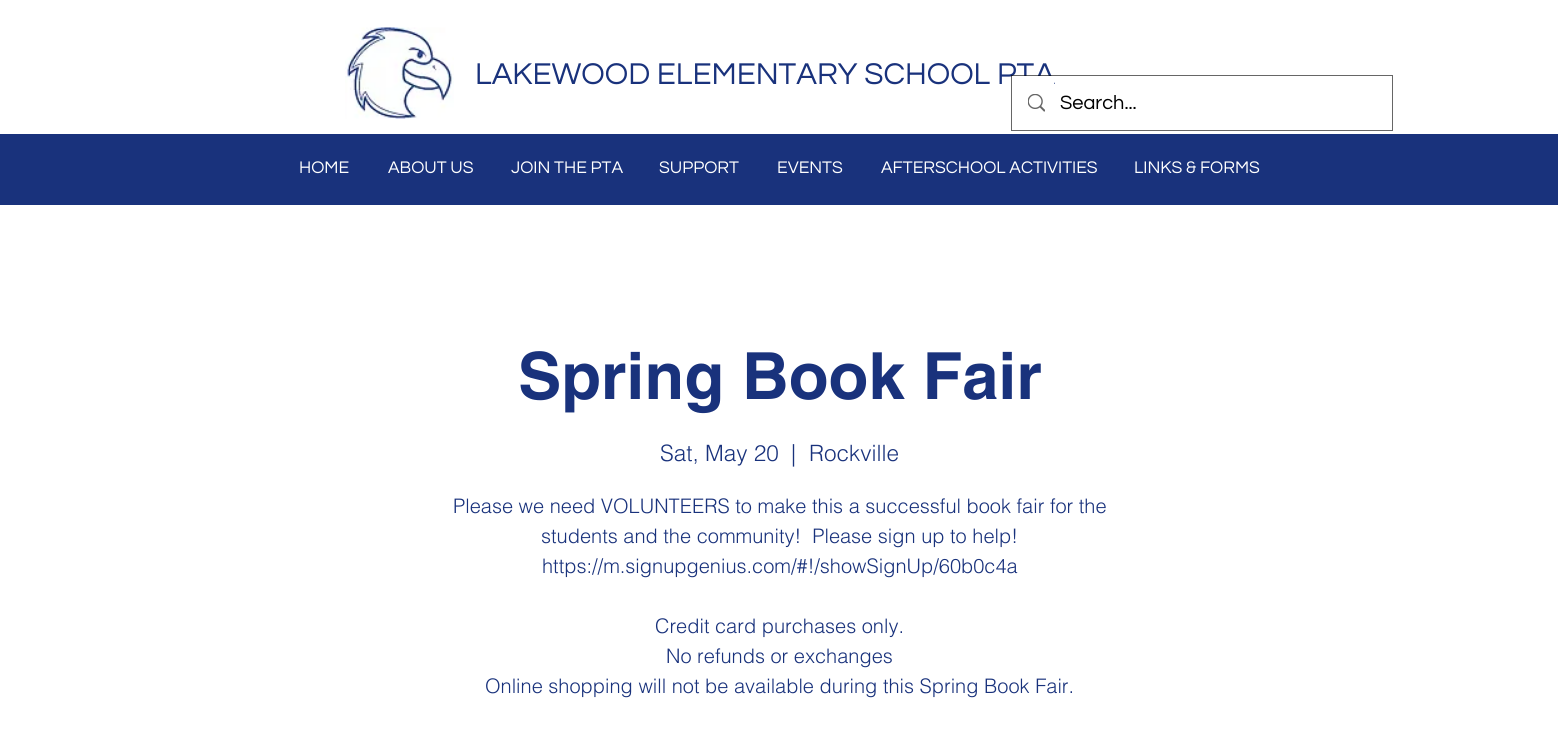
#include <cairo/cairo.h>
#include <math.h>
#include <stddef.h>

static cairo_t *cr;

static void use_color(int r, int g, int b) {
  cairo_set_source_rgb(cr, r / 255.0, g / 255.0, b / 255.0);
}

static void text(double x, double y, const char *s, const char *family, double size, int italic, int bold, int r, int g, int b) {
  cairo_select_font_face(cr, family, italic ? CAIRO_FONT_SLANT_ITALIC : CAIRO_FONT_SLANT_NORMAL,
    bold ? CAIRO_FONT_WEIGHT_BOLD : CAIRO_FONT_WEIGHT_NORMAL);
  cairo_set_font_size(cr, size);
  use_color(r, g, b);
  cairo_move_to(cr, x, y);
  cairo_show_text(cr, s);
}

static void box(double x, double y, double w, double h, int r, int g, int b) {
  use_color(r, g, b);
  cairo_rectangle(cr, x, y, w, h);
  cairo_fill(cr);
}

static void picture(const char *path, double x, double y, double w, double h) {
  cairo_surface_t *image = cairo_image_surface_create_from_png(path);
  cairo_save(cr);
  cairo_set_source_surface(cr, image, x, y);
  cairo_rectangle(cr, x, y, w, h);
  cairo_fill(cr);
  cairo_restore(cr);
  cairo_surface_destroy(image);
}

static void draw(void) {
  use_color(255, 255, 255);
  cairo_paint(cr);
  picture("img_01.png", 345, 27, 109, 92);
  box(0, 134, 1558, 71, 25, 50, 124);
  text(475, 84, "LAKEWOOD ELEMENTARY SCHOOL PTA", "Questrial", 31.25, 0, 0, 25, 50, 124);
  cairo_rectangle(cr, 1011.5, 75.5, 381, 55);
  cairo_set_source_rgba(cr, 0, 0, 0, 0.6);
  cairo_set_line_width(cr, 1);
  cairo_stroke(cr);
  box(1024, 76, 30, 8, 255, 255, 255);
  picture("img_02.png", 1028, 94, 17, 18);
  text(1060, 109, "Search...", "Questrial", 20, 0, 0, 0, 0, 0);
  text(299, 173, "HOME", "Questrial", 17.5, 0, 0, 255, 255, 255);
  text(388, 173, "ABOUT US", "Questrial", 17.5, 0, 0, 255, 255, 255);
  text(511, 173, "JOIN THE PTA", "Questrial", 17.5, 0, 0, 255, 255, 255);
  text(659, 173, "SUPPORT", "Questrial", 17.5, 0, 0, 255, 255, 255);
  text(777, 173, "EVENTS", "Questrial", 17.5, 0, 0, 255, 255, 255);
  text(881, 173, "AFTERSCHOOL ACTIVITIES", "Questrial", 17.5, 0, 0, 255, 255, 255);
  text(1134, 173, "LINKS & FORMS", "Questrial", 17.5, 0, 0, 255, 255, 255);
  text(518, 399, "Spring Book Fair", "helvetica", 65, 0, 1, 25, 50, 124);
  text(660, 461, "Sat, May 20", "helvetica Light", 22.5, 0, 0, 25, 50, 124);
  text(791, 461, "|", "helvetica Light", 22.5, 0, 0, 25, 50, 124);
  text(809, 461, "Rockville", "helvetica Light", 22.5, 0, 0, 25, 50, 124);
  text(453, 513, "Please we need VOLUNTEERS to make this a successful book fair for the", "helvetica Light", 20, 0, 0, 25, 50, 124);
  text(541, 543, "students and the community!  Please sign up to help!", "helvetica Light", 20, 0, 0, 25, 50, 124);
  text(542, 573, "https://m.signupgenius.com/#!/showSignUp/60b0c4a", "helvetica Light", 20, 0, 0, 25, 50, 124);
  text(655, 633, "Credit card purchases only.", "helvetica Light", 20, 0, 0, 25, 50, 124);
  text(666, 663, "No refunds or exchanges", "helvetica Light", 20, 0, 0, 25, 50, 124);
  text(485, 693, "Online shopping will not be available during this Spring Book Fair.", "helvetica Light", 20, 0, 0, 25, 50, 124);
}

int main(void) {
  cairo_surface_t *surface = cairo_image_surface_create(CAIRO_FORMAT_RGB24, 1558, 729);
  cr = cairo_create(surface);
  cairo_font_options_t *options = cairo_font_options_create();
  cairo_font_options_set_hint_metrics(options, CAIRO_HINT_METRICS_OFF);
  cairo_font_options_set_hint_style(options, CAIRO_HINT_STYLE_NONE);
  cairo_set_font_options(cr, options);
  cairo_set_miter_limit(cr, 4);
  draw();
  cairo_surface_write_to_png(surface, "out.png");
  cairo_font_options_destroy(options);
  cairo_destroy(cr);
  cairo_surface_destroy(surface);
  return 0;
}
